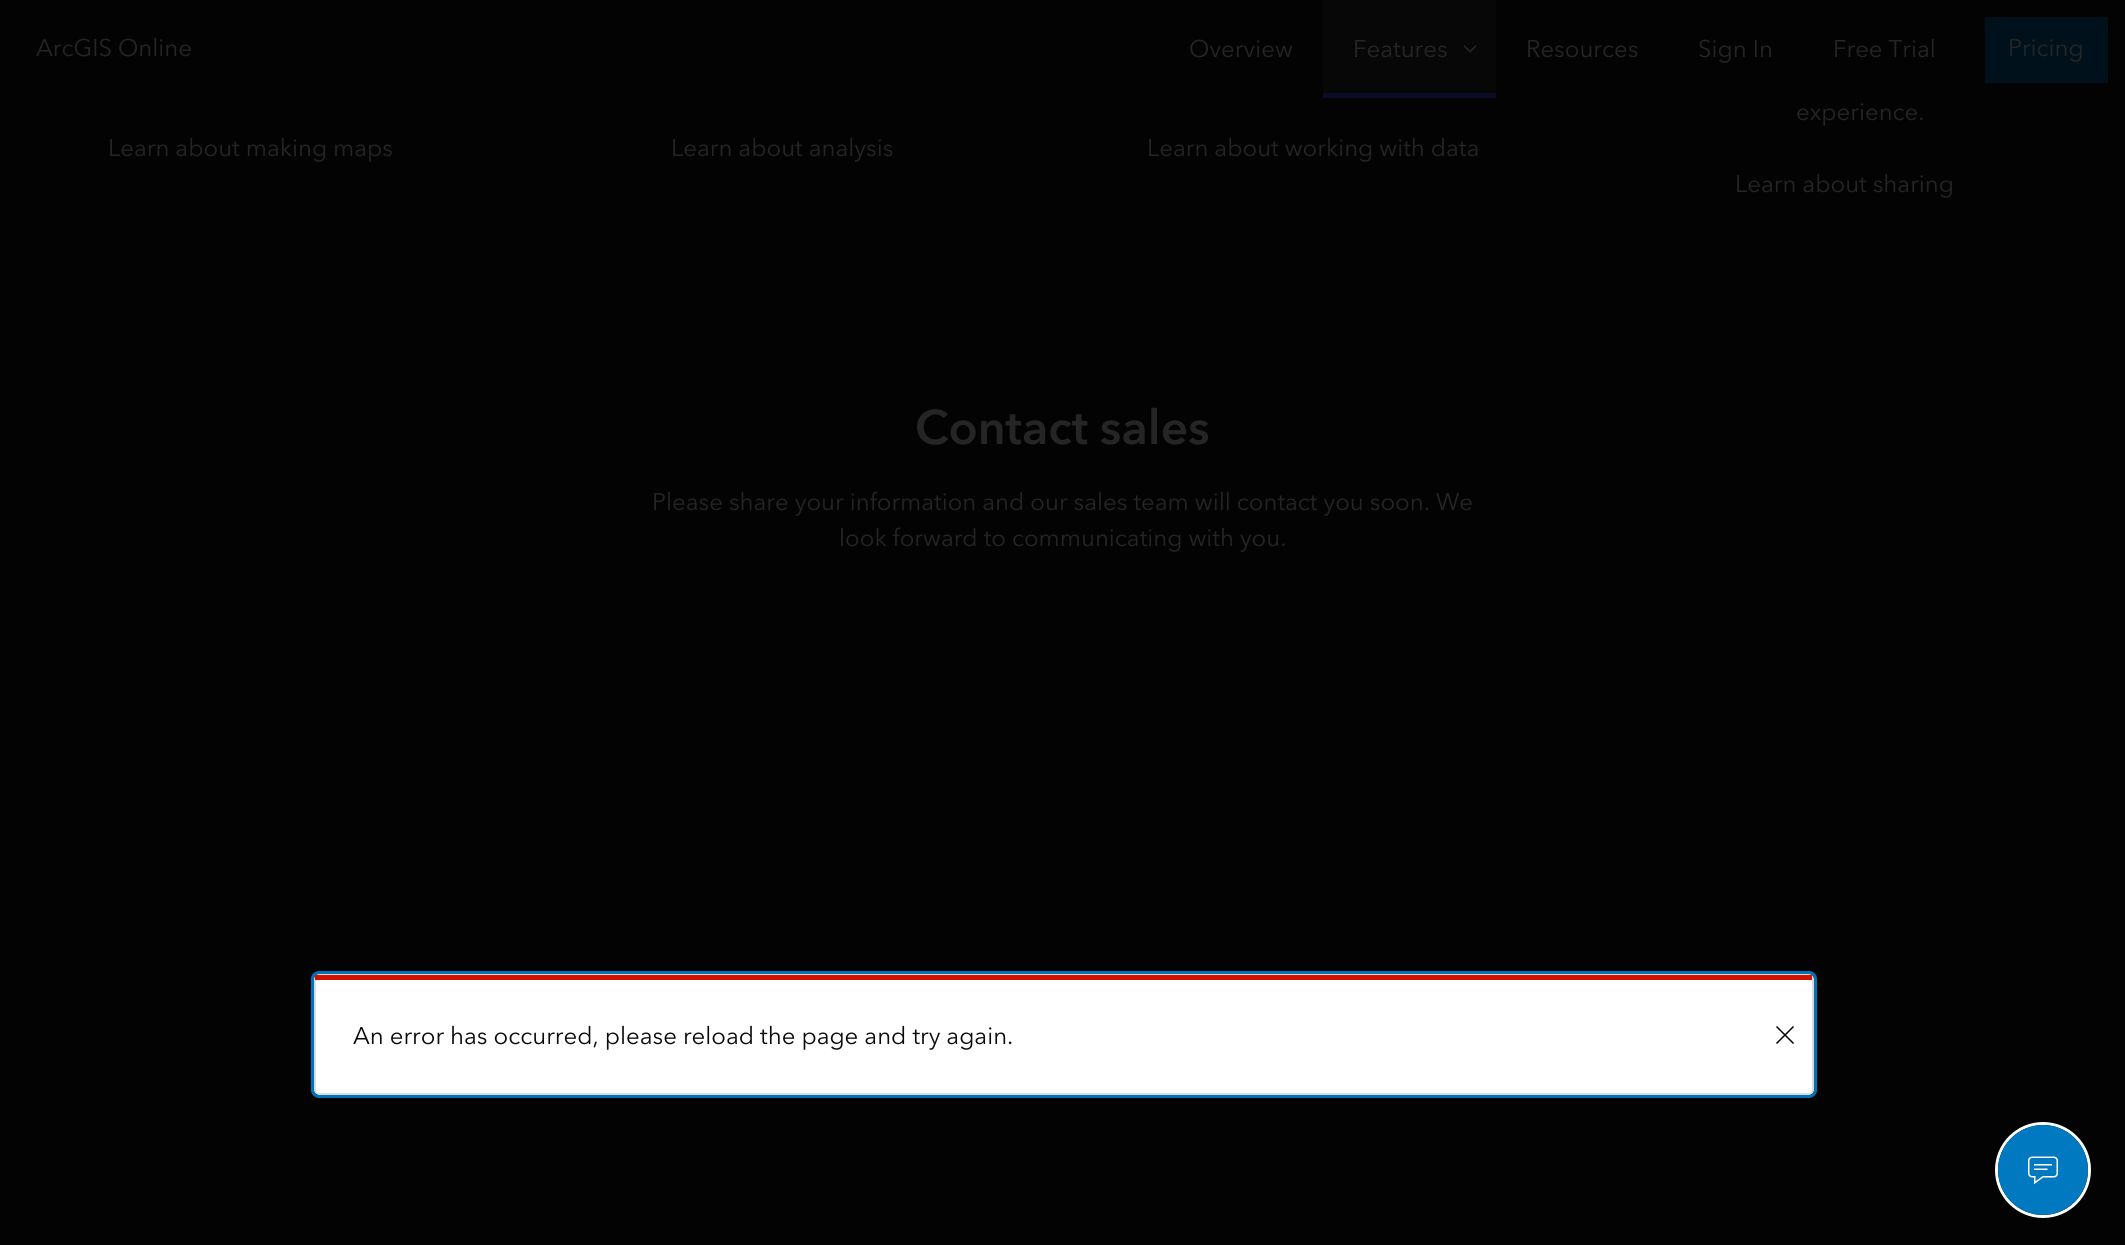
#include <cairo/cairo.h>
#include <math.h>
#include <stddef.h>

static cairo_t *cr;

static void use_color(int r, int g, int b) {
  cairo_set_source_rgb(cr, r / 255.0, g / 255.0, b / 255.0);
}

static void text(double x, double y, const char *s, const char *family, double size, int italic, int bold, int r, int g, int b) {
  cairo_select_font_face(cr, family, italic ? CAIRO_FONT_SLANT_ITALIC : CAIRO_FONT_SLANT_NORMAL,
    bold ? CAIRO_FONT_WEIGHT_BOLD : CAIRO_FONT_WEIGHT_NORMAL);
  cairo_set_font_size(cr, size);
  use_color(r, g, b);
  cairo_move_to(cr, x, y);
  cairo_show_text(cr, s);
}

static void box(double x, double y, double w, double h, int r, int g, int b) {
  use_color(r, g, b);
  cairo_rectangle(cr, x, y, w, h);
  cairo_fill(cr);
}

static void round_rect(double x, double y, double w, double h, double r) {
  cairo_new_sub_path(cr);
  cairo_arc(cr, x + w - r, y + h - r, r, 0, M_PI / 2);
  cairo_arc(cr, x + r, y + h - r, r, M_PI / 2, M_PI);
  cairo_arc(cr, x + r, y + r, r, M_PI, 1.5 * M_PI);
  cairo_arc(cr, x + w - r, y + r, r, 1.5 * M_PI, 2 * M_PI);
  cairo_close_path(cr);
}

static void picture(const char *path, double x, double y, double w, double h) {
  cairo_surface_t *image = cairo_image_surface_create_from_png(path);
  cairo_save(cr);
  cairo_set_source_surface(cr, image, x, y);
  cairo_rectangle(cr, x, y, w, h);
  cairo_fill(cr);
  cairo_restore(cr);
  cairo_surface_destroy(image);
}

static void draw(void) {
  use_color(3, 3, 3);
  cairo_paint(cr);
  box(1323, 0, 173, 93, 7, 7, 7);
  box(1323, 93, 173, 5, 9, 12, 36);
  picture("img_01.png", 1464, 44, 12, 9);
  box(1985, 17, 123, 66, 0, 17, 28);
  use_color(255, 255, 255);
  round_rect(314, 974, 1500, 121, 5);
  cairo_fill(cr);
  round_rect(315, 975, 1498, 119, 4);
  cairo_set_source_rgba(cr, 0, 0, 0, 0.14);
  cairo_stroke(cr);
  box(315, 975, 1497, 5, 212, 17, 1);
  round_rect(312.5, 972.5, 1503, 124, 6.5);
  use_color(0, 116, 184);
  cairo_set_line_width(cr, 3);
  cairo_stroke(cr);
  picture("img_02.png", 1776, 1026, 18, 18);
  cairo_arc(cr, 2043, 1170, 46.5, 0, 2 * M_PI);
  use_color(255, 255, 255);
  cairo_stroke(cr);
  use_color(0, 121, 193);
  cairo_arc(cr, 2043, 1170, 45, 0, 2 * M_PI);
  cairo_fill(cr);
  picture("img_03.png", 2028, 1156, 30, 29);
  text(36, 56, "ArcGIS Online", "Avenir Next", 24, 0, 0, 37, 37, 37);
  text(1189, 57, "Overview", "Avenir Next", 24, 0, 0, 37, 37, 37);
  text(1353, 57, "Features", "Avenir Next", 24, 0, 0, 37, 37, 37);
  text(1526, 57, "Resources", "Avenir Next", 24, 0, 0, 37, 37, 37);
  text(1698, 57, "Sign In", "Avenir Next", 24, 0, 0, 37, 37, 37);
  text(1833, 57, "Free Trial", "Avenir Next", 24, 0, 0, 37, 37, 37);
  text(2008, 56, "Pricing", "Avenir Next", 24, 0, 0, 37, 37, 37);
  text(108, 156, "Learn about making maps", "Avenir Next", 24, 0, 0, 37, 37, 37);
  text(671, 156, "Learn about analysis", "Avenir Next", 24, 0, 0, 37, 37, 37);
  text(1147, 156, "Learn about working with data", "Avenir Next", 24, 0, 0, 37, 37, 37);
  text(1796, 120, "experience.", "Avenir Next", 24, 0, 0, 37, 37, 37);
  text(1735, 192, "Learn about sharing", "Avenir Next", 24, 0, 0, 37, 37, 37);
  text(915, 444, "Contact sales", "Avenir Next", 48, 0, 1, 37, 37, 37);
  text(652, 510, "Please share your information and our sales team will contact you soon. We", "Avenir Next", 24, 0, 0, 37, 37, 37);
  text(839, 546, "look forward to communicating with you.", "Avenir Next", 24, 0, 0, 37, 37, 37);
  text(353, 1044, "An error has occurred, please reload the page and try again.", "Avenir Next", 24, 0, 0, 10, 10, 10);
}

int main(void) {
  cairo_surface_t *surface = cairo_image_surface_create(CAIRO_FORMAT_RGB24, 2125, 1245);
  cr = cairo_create(surface);
  cairo_font_options_t *options = cairo_font_options_create();
  cairo_font_options_set_hint_metrics(options, CAIRO_HINT_METRICS_OFF);
  cairo_font_options_set_hint_style(options, CAIRO_HINT_STYLE_NONE);
  cairo_set_font_options(cr, options);
  cairo_set_miter_limit(cr, 4);
  draw();
  cairo_surface_write_to_png(surface, "out.png");
  cairo_font_options_destroy(options);
  cairo_destroy(cr);
  cairo_surface_destroy(surface);
  return 0;
}
